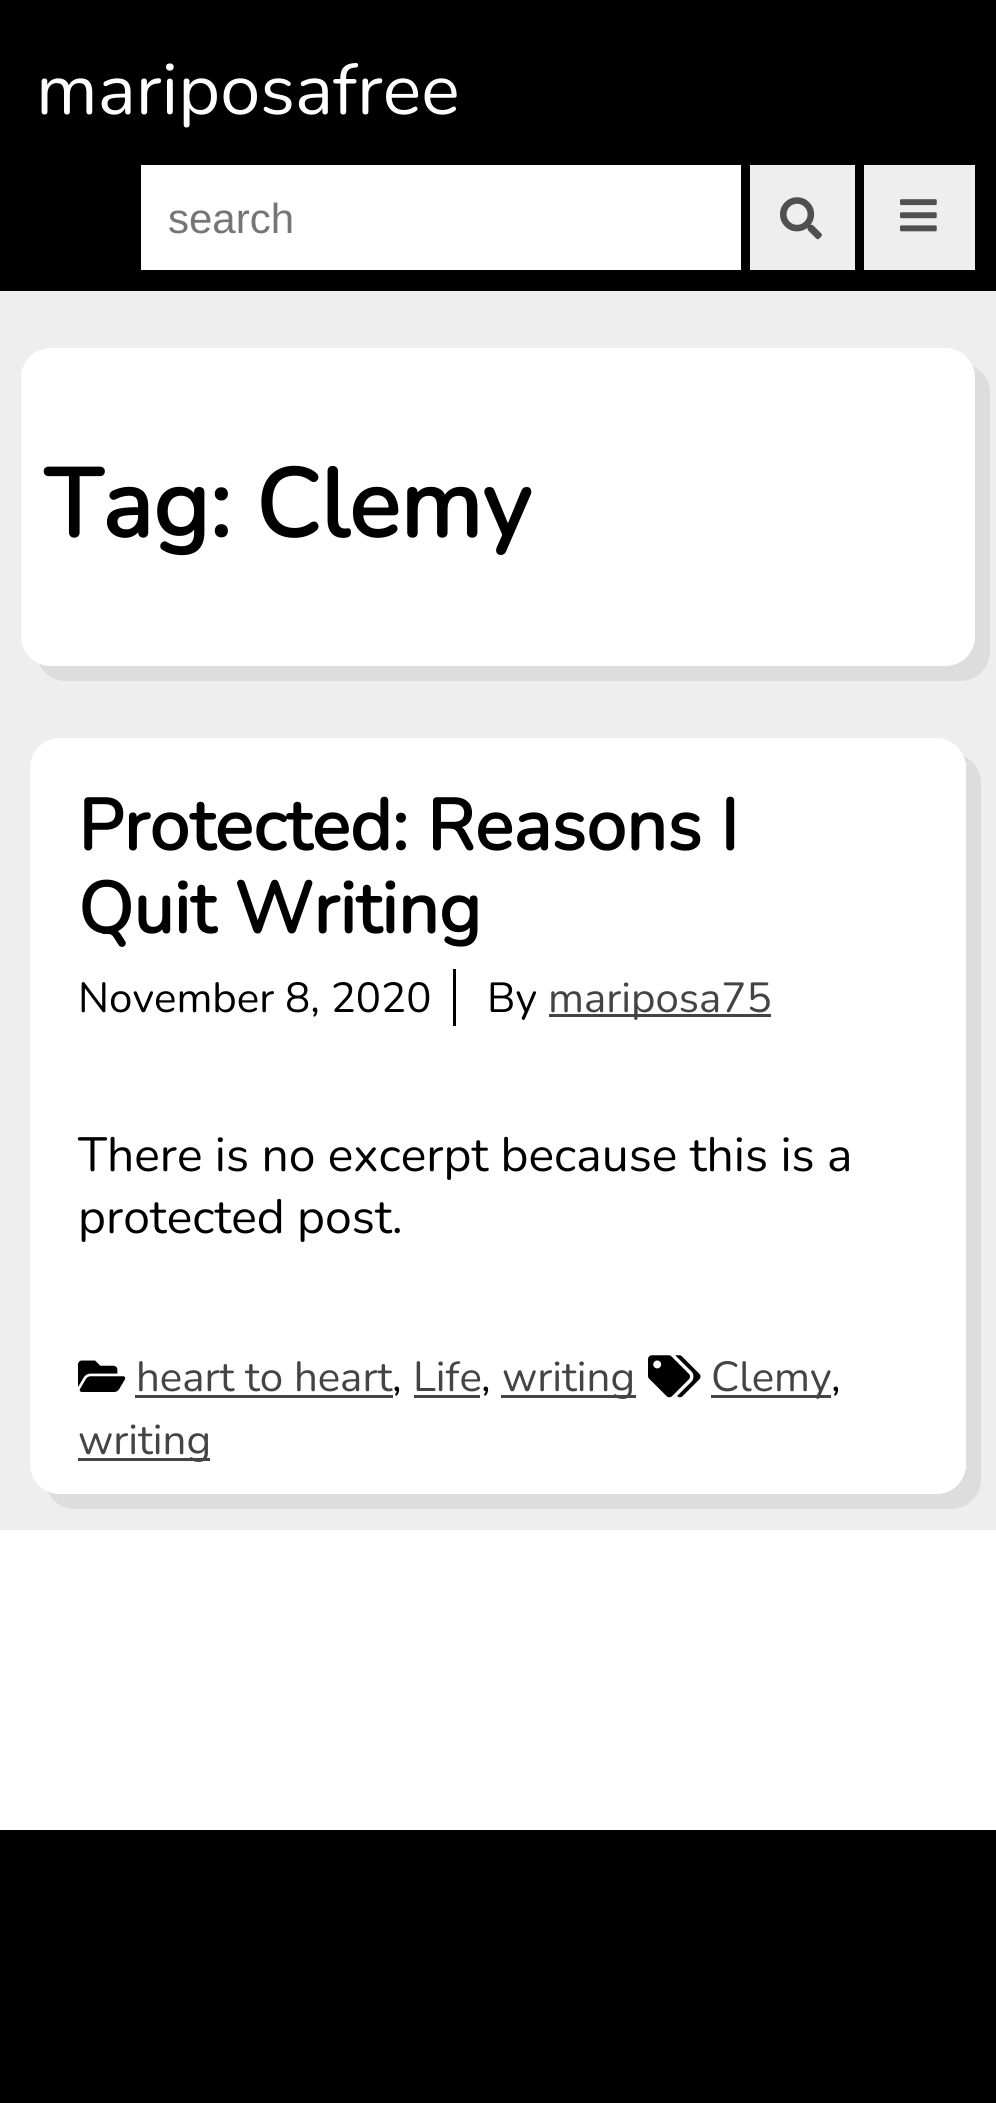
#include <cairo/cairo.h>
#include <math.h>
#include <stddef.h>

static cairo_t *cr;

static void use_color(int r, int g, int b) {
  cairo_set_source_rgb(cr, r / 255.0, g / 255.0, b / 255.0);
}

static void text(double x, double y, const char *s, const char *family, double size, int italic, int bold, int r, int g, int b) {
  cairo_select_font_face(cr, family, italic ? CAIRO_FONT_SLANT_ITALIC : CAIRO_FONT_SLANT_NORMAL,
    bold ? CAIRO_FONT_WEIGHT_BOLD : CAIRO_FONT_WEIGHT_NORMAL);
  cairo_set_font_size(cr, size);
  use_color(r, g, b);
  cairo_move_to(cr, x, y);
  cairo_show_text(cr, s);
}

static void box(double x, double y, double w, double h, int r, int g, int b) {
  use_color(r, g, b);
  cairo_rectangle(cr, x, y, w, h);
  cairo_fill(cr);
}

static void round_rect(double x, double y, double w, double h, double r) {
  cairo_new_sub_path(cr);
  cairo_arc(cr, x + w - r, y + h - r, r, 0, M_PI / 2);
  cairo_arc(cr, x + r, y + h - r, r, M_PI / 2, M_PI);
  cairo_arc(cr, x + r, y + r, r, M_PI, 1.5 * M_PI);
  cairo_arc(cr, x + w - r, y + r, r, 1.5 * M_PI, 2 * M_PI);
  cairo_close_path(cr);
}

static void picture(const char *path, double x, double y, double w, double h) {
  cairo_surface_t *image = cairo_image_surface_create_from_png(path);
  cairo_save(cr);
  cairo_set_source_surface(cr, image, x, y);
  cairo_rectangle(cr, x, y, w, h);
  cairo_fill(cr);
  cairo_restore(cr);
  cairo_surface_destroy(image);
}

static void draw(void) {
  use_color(255, 255, 255);
  cairo_paint(cr);
  box(0, 0, 996, 291, 0, 0, 0);
  box(141, 165, 600, 105, 255, 255, 255);
  box(750, 165, 105, 105, 238, 238, 238);
  picture("img_01.png", 780, 197, 42, 43);
  box(864, 165, 111, 105, 238, 238, 238);
  picture("img_02.png", 900, 199, 37, 33);
  box(0, 291, 996, 1239, 238, 238, 238);
  use_color(221, 221, 221);
  cairo_new_path(cr);
  cairo_move_to(cr, 39, 663);
  cairo_curve_to(cr, 43, 674, 54, 681, 66, 681);
  cairo_line_to(cr, 960, 681);
  cairo_curve_to(cr, 977, 681, 990, 668, 990, 651);
  cairo_line_to(cr, 990, 393);
  cairo_curve_to(cr, 990, 381, 983, 370, 972, 366);
  cairo_curve_to(cr, 974, 369, 975, 374, 975, 378);
  cairo_line_to(cr, 975, 636);
  cairo_curve_to(cr, 975, 653, 962, 666, 945, 666);
  cairo_line_to(cr, 51, 666);
  cairo_curve_to(cr, 47, 666, 42, 665, 39, 663);
  cairo_close_path(cr);
  cairo_fill(cr);
  use_color(255, 255, 255);
  round_rect(21, 348, 954, 318, 30);
  cairo_fill(cr);
  use_color(221, 221, 221);
  cairo_new_path(cr);
  cairo_move_to(cr, 48, 1491);
  cairo_curve_to(cr, 52, 1502, 63, 1509, 75, 1509);
  cairo_line_to(cr, 951, 1509);
  cairo_curve_to(cr, 968, 1509, 981, 1496, 981, 1479);
  cairo_line_to(cr, 981, 783);
  cairo_curve_to(cr, 981, 771, 974, 760, 963, 756);
  cairo_curve_to(cr, 965, 759, 966, 764, 966, 768);
  cairo_line_to(cr, 966, 1464);
  cairo_curve_to(cr, 966, 1481, 953, 1494, 936, 1494);
  cairo_line_to(cr, 60, 1494);
  cairo_curve_to(cr, 56, 1494, 51, 1493, 48, 1491);
  cairo_close_path(cr);
  cairo_fill(cr);
  use_color(255, 255, 255);
  round_rect(30, 738, 936, 756, 30);
  cairo_fill(cr);
  box(453, 969, 3, 57, 0, 0, 0);
  box(549, 1014, 222, 3, 68, 68, 68);
  picture("img_03.png", 648, 1355, 53, 43);
  box(711, 1395, 120, 3, 68, 68, 68);
  box(78, 1458, 132, 3, 68, 68, 68);
  picture("img_04.png", 78, 1360, 48, 32);
  box(135, 1395, 258, 3, 68, 68, 68);
  box(414, 1395, 66, 3, 68, 68, 68);
  box(501, 1395, 135, 3, 68, 68, 68);
  box(0, 1830, 996, 273, 0, 0, 0);
  text(36, 114, "mariposafree", "Nunito ExtraLight", 72, 0, 0, 255, 255, 255);
  text(168, 233, "search", "Liberation Sans", 42, 0, 0, 117, 117, 117);
  text(44, 537, "Tag: Clemy", "Nunito", 96, 0, 1, 0, 0, 0);
  text(78, 850, "Protected: Reasons I", "Nunito", 72, 0, 1, 0, 0, 0);
  text(78, 933, "Quit Writing", "Nunito", 72, 0, 1, 0, 0, 0);
  text(78, 1012, "November 8, 2020", "Nunito ExtraLight", 42, 0, 0, 0, 0, 0);
  text(487, 1012, "By", "Nunito ExtraLight", 42, 0, 0, 0, 0, 0);
  text(548, 1012, "mariposa75", "Nunito ExtraLight", 42, 0, 0, 68, 68, 68);
  text(78, 1171, "There is no excerpt because this is a", "Nunito ExtraLight", 48, 0, 0, 0, 0, 0);
  text(78, 1233, "protected post.", "Nunito ExtraLight", 48, 0, 0, 0, 0, 0);
  text(711, 1391, "Clemy", "Nunito ExtraLight", 42, 0, 0, 68, 68, 68);
  text(831, 1391, ",", "Nunito ExtraLight", 42, 0, 0, 0, 0, 0);
  text(78, 1454, "writing", "Nunito ExtraLight", 42, 0, 0, 68, 68, 68);
  text(136, 1391, "heart to heart", "Nunito ExtraLight", 42, 0, 0, 68, 68, 68);
  text(392, 1391, ",", "Nunito ExtraLight", 42, 0, 0, 0, 0, 0);
  text(413, 1391, "Life", "Nunito ExtraLight", 42, 0, 0, 68, 68, 68);
  text(481, 1391, ",", "Nunito ExtraLight", 42, 0, 0, 0, 0, 0);
  text(502, 1391, "writing", "Nunito ExtraLight", 42, 0, 0, 68, 68, 68);
}

int main(void) {
  cairo_surface_t *surface = cairo_image_surface_create(CAIRO_FORMAT_RGB24, 996, 2103);
  cr = cairo_create(surface);
  cairo_font_options_t *options = cairo_font_options_create();
  cairo_font_options_set_hint_metrics(options, CAIRO_HINT_METRICS_OFF);
  cairo_font_options_set_hint_style(options, CAIRO_HINT_STYLE_NONE);
  cairo_set_font_options(cr, options);
  cairo_set_miter_limit(cr, 4);
  draw();
  cairo_surface_write_to_png(surface, "out.png");
  cairo_font_options_destroy(options);
  cairo_destroy(cr);
  cairo_surface_destroy(surface);
  return 0;
}
